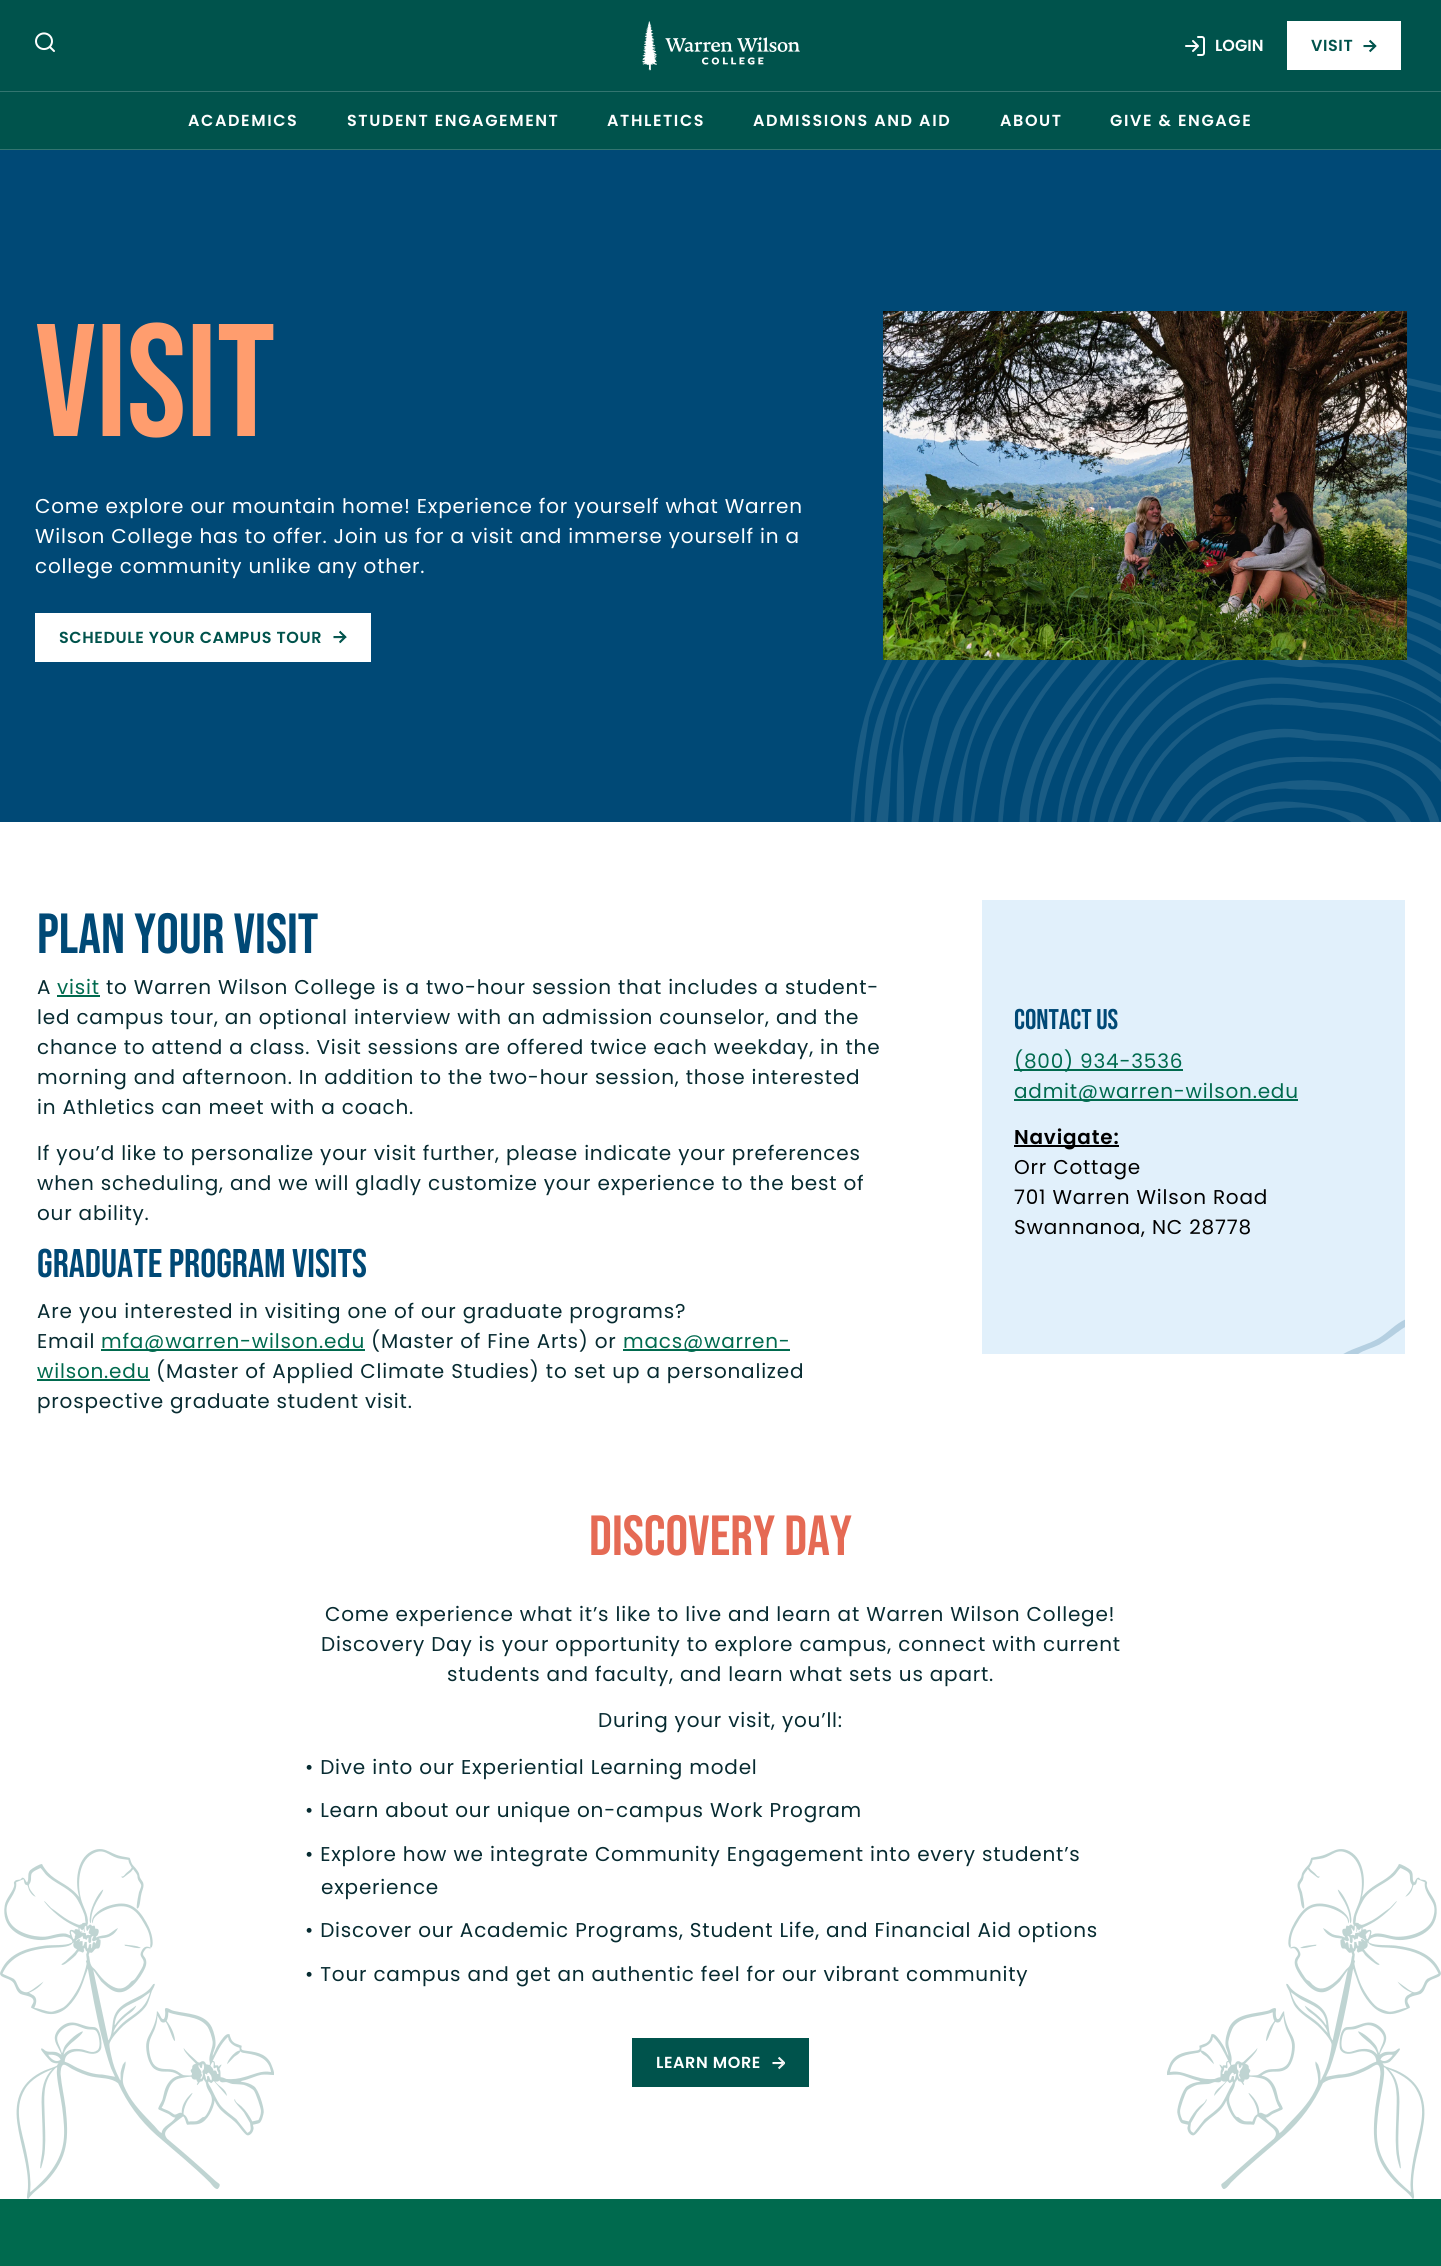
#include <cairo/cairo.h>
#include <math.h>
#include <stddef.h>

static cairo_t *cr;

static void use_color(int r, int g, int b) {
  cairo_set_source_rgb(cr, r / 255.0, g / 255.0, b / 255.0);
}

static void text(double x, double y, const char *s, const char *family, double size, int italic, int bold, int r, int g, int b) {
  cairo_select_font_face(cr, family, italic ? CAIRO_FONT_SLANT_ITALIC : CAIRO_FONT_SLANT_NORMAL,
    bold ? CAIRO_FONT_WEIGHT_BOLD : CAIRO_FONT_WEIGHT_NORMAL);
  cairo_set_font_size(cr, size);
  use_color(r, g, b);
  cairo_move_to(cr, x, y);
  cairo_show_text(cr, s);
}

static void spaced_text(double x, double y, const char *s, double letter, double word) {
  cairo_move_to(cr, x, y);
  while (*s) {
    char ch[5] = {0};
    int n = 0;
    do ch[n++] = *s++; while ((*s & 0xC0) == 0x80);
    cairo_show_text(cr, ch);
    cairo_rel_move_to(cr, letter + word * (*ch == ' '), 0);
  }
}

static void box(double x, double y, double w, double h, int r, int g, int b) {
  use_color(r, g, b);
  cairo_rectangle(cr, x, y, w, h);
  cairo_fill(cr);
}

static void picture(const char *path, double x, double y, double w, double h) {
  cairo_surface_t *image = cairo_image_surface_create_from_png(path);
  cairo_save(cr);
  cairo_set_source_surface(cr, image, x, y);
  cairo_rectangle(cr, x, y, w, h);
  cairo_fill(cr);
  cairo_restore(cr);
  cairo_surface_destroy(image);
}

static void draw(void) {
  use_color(255, 255, 255);
  cairo_paint(cr);
  box(0, 0, 1441, 149, 0, 83, 76);
  picture("img_01.png", 35, 32, 20, 20);
  picture("img_02.png", 642, 21, 158, 50);
  picture("img_03.png", 1185, 36, 20, 20);
  box(1287, 21, 114, 49, 255, 255, 255);
  picture("img_04.png", 1363, 39, 14, 14);
  box(0, 91, 1441, 1, 51, 117, 112);
  box(0, 149, 1441, 1, 51, 117, 112);
  box(0, 150, 1441, 672, 0, 73, 118);
  picture("img_05.png", 850, 378, 591, 444);
  picture("img_06.png", 883, 311, 524, 349);
  box(35, 613, 336, 49, 255, 255, 255);
  picture("img_07.png", 333, 630, 14, 14);
  box(57, 995, 43, 2, 0, 106, 78);
  box(101, 1349, 264, 2, 0, 106, 78);
  box(623, 1349, 167, 2, 0, 106, 78);
  box(37, 1379, 113, 2, 0, 106, 78);
  box(982, 900, 423, 454, 225, 240, 251);
  box(1014, 1069, 169, 2, 0, 106, 78);
  box(1014, 1099, 284, 2, 0, 106, 78);
  box(1014, 1145, 105, 2, 0, 0, 0);
  picture("img_08.png", 1343, 1319, 62, 35);
  picture("img_09.png", 0, 1849, 274, 350);
  box(632, 2038, 177, 49, 0, 83, 76);
  picture("img_10.png", 772, 2056, 13, 14);
  picture("img_11.png", 1167, 1849, 274, 350);
  box(0, 2199, 1441, 67, 0, 106, 78);
  text(1215, 51, "LOGIN", "Poppins SemiBold", 16, 0, 0, 255, 255, 255);
  use_color(0, 83, 76);
  spaced_text(1311, 51, "VISIT", 0.6, 0);
  use_color(255, 255, 255);
  spaced_text(188, 126, "ACADEMICS", 1.6, 0);
  spaced_text(347, 126, "STUDENT ENGAGEMENT", 1.6, 0);
  spaced_text(607, 126, "ATHLETICS", 1.6, 0);
  spaced_text(753, 126, "ADMISSIONS AND AID", 1.6, 0);
  spaced_text(1000, 126, "ABOUT", 1.6, 0);
  spaced_text(1110, 126, "GIVE & ENGAGE", 1.6, 0);
  text(35, 436, "Visit", "Bebas Neue", 160, 0, 0, 255, 157, 110);
  cairo_select_font_face(cr, "Poppins", CAIRO_FONT_SLANT_NORMAL, CAIRO_FONT_WEIGHT_NORMAL);
  cairo_set_font_size(cr, 20);
  use_color(255, 255, 255);
  spaced_text(35, 513, "Come explore our mountain home! Experience for yourself what Warren", 0.8, 0);
  spaced_text(35, 543, "Wilson College has to offer. Join us for a visit and immerse yourself in a", 0.8, 0);
  spaced_text(35, 573, "college community unlike any other.", 0.8, 0);
  cairo_select_font_face(cr, "Poppins SemiBold", CAIRO_FONT_SLANT_NORMAL, CAIRO_FONT_WEIGHT_NORMAL);
  cairo_set_font_size(cr, 16);
  use_color(0, 83, 76);
  spaced_text(59, 643, "SCHEDULE YOUR CAMPUS TOUR", 0.6, 0);
  text(37, 953, "Plan Your Visit", "Bebas Neue", 56.5, 0, 0, 0, 73, 118);
  cairo_select_font_face(cr, "Poppins", CAIRO_FONT_SLANT_NORMAL, CAIRO_FONT_WEIGHT_NORMAL);
  cairo_set_font_size(cr, 20);
  use_color(7, 43, 49);
  spaced_text(37, 994, "A", 0.8, 0);
  use_color(0, 106, 78);
  spaced_text(57, 994, "visit", 0.8, 0);
  use_color(7, 43, 49);
  spaced_text(106, 994, "to Warren Wilson College is a two-hour session that includes a student-", 0.8, 0);
  spaced_text(37, 1024, "led campus tour, an optional interview with an admission counselor, and the", 0.8, 0);
  spaced_text(37, 1054, "chance to attend a class. Visit sessions are offered twice each weekday, in the", 0.8, 0);
  spaced_text(37, 1084, "morning and afternoon. In addition to the two-hour session, those interested", 0.8, 0);
  spaced_text(37, 1114, "in Athletics can meet with a coach.", 0.8, 0);
  spaced_text(37, 1160, "If you’d like to personalize your visit further, please indicate your preferences", 0.8, 0);
  spaced_text(37, 1190, "when scheduling, and we will gladly customize your experience to the best of", 0.8, 0);
  spaced_text(37, 1220, "our ability.", 0.8, 0);
  text(37, 1277, "Graduate Program Visits", "Bebas Neue", 40, 0, 0, 0, 73, 118);
  cairo_select_font_face(cr, "Poppins", CAIRO_FONT_SLANT_NORMAL, CAIRO_FONT_WEIGHT_NORMAL);
  cairo_set_font_size(cr, 20);
  use_color(7, 43, 49);
  spaced_text(37, 1318, "Are you interested in visiting one of our graduate programs?", 0.8, 0);
  spaced_text(37, 1348, "Email", 0.8, 0);
  use_color(0, 106, 78);
  spaced_text(101, 1348, "mfa@warren-wilson.edu", 0.8, 0);
  use_color(7, 43, 49);
  spaced_text(371, 1348, "(Master of Fine Arts) or", 0.8, 0);
  use_color(0, 106, 78);
  spaced_text(623, 1348, "macs@warren-", 0.8, 0);
  spaced_text(37, 1378, "wilson.edu", 0.8, 0);
  use_color(7, 43, 49);
  spaced_text(156, 1378, "(Master of Applied Climate Studies) to set up a personalized", 0.8, 0);
  spaced_text(37, 1408, "prospective graduate student visit.", 0.8, 0);
  text(1014, 1029, "Contact Us", "Bebas Neue", 28.5, 0, 0, 0, 73, 118);
  cairo_select_font_face(cr, "Poppins", CAIRO_FONT_SLANT_NORMAL, CAIRO_FONT_WEIGHT_NORMAL);
  cairo_set_font_size(cr, 20);
  use_color(0, 106, 78);
  spaced_text(1014, 1068, "(800) 934-3536", 0.8, 0);
  spaced_text(1014, 1098, "admit@warren-wilson.edu", 0.8, 0);
  cairo_select_font_face(cr, "Poppins SemiBold", CAIRO_FONT_SLANT_NORMAL, CAIRO_FONT_WEIGHT_NORMAL);
  use_color(0, 0, 0);
  spaced_text(1014, 1144, "Navigate:", 0.8, 0);
  cairo_select_font_face(cr, "Poppins", CAIRO_FONT_SLANT_NORMAL, CAIRO_FONT_WEIGHT_NORMAL);
  spaced_text(1014, 1174, "Orr Cottage", 0.8, 0);
  spaced_text(1014, 1204, "701 Warren Wilson Road", 0.8, 0);
  spaced_text(1014, 1234, "Swannanoa, NC 28778", 0.8, 0);
  text(589, 1555, "Discovery Day", "Bebas Neue", 56.5, 0, 0, 229, 106, 84);
  cairo_select_font_face(cr, "Poppins", CAIRO_FONT_SLANT_NORMAL, CAIRO_FONT_WEIGHT_NORMAL);
  cairo_set_font_size(cr, 20);
  use_color(7, 43, 49);
  spaced_text(325, 1621, "Come experience what it’s like to live and learn at Warren Wilson College!", 0.8, 0);
  spaced_text(321, 1651, "Discovery Day is your opportunity to explore campus, connect with current", 0.8, 0);
  spaced_text(447, 1681, "students and faculty, and learn what sets us apart.", 0.8, 0);
  spaced_text(598, 1727, "During your visit, you’ll:", 0.8, 0);
  spaced_text(305, 1774, "• Dive into our Experiential Learning model", 0.8, 0);
  spaced_text(305, 1817, "• Learn about our unique on-campus Work Program", 0.8, 0);
  spaced_text(305, 1861, "• Explore how we integrate Community Engagement into every student’s", 0.8, 0);
  spaced_text(321, 1894, "experience", 0.8, 0);
  spaced_text(305, 1937, "• Discover our Academic Programs, Student Life, and Financial Aid options", 0.8, 0);
  spaced_text(305, 1981, "• Tour campus and get an authentic feel for our vibrant community", 0.8, 0);
  cairo_select_font_face(cr, "Poppins SemiBold", CAIRO_FONT_SLANT_NORMAL, CAIRO_FONT_WEIGHT_NORMAL);
  cairo_set_font_size(cr, 16);
  use_color(255, 255, 255);
  spaced_text(656, 2068, "LEARN MORE", 0.6, 0);
}

int main(void) {
  cairo_surface_t *surface = cairo_image_surface_create(CAIRO_FORMAT_RGB24, 1441, 2266);
  cr = cairo_create(surface);
  cairo_font_options_t *options = cairo_font_options_create();
  cairo_font_options_set_hint_metrics(options, CAIRO_HINT_METRICS_OFF);
  cairo_font_options_set_hint_style(options, CAIRO_HINT_STYLE_NONE);
  cairo_set_font_options(cr, options);
  cairo_set_miter_limit(cr, 4);
  draw();
  cairo_surface_write_to_png(surface, "out.png");
  cairo_font_options_destroy(options);
  cairo_destroy(cr);
  cairo_surface_destroy(surface);
  return 0;
}
